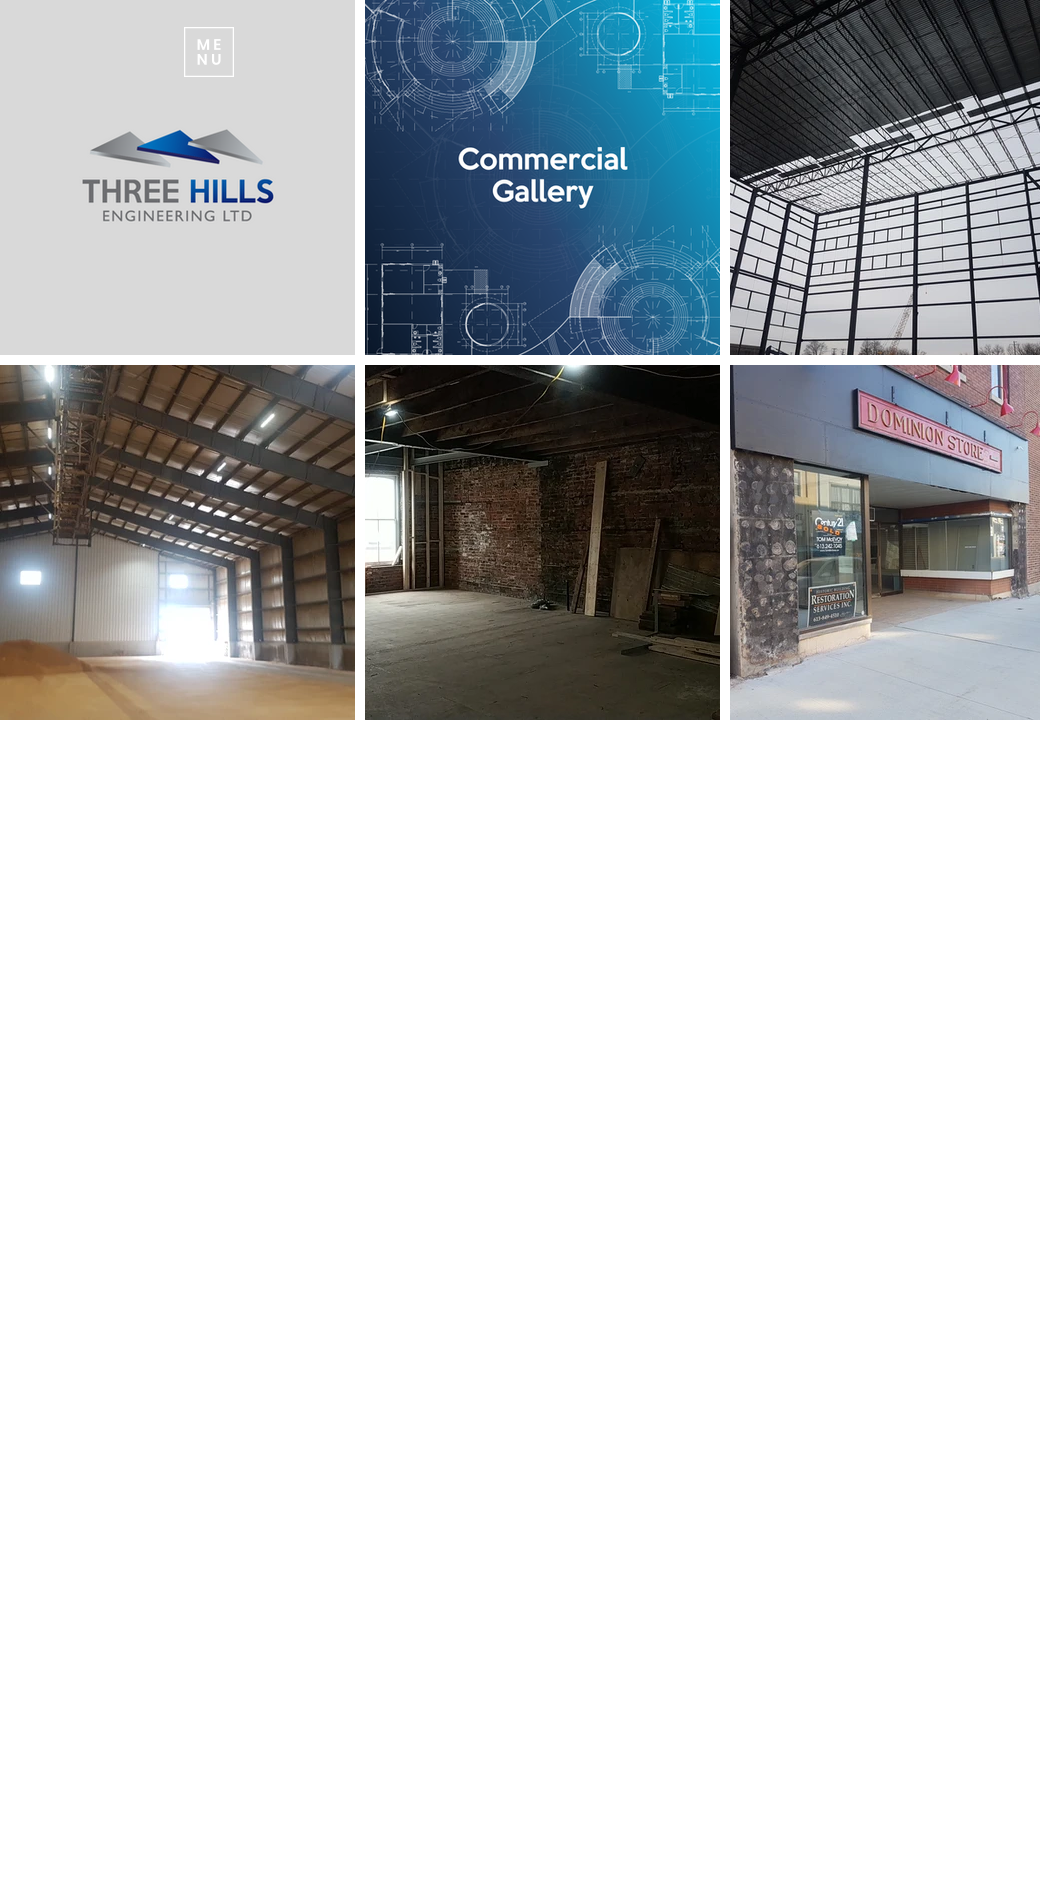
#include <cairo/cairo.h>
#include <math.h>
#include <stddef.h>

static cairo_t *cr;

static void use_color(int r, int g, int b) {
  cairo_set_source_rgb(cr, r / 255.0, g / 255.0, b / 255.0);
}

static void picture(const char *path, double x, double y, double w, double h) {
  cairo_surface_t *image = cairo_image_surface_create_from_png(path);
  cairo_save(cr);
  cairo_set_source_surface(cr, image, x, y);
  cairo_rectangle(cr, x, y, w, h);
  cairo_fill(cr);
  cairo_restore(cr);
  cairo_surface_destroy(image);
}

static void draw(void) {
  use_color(255, 255, 255);
  cairo_paint(cr);
  picture("img_01.png", 0, 0, 355, 355);
  picture("img_02.png", 365, 0, 355, 355);
  picture("img_03.png", 730, 0, 310, 355);
  picture("img_04.png", 0, 365, 355, 355);
  picture("img_05.png", 365, 365, 355, 355);
  picture("img_06.png", 730, 365, 310, 355);
  picture("img_07.png", 184, 27, 50, 50);
}

int main(void) {
  cairo_surface_t *surface = cairo_image_surface_create(CAIRO_FORMAT_RGB24, 1040, 1898);
  cr = cairo_create(surface);
  cairo_font_options_t *options = cairo_font_options_create();
  cairo_font_options_set_hint_metrics(options, CAIRO_HINT_METRICS_OFF);
  cairo_font_options_set_hint_style(options, CAIRO_HINT_STYLE_NONE);
  cairo_set_font_options(cr, options);
  cairo_set_miter_limit(cr, 4);
  draw();
  cairo_surface_write_to_png(surface, "out.png");
  cairo_font_options_destroy(options);
  cairo_destroy(cr);
  cairo_surface_destroy(surface);
  return 0;
}
